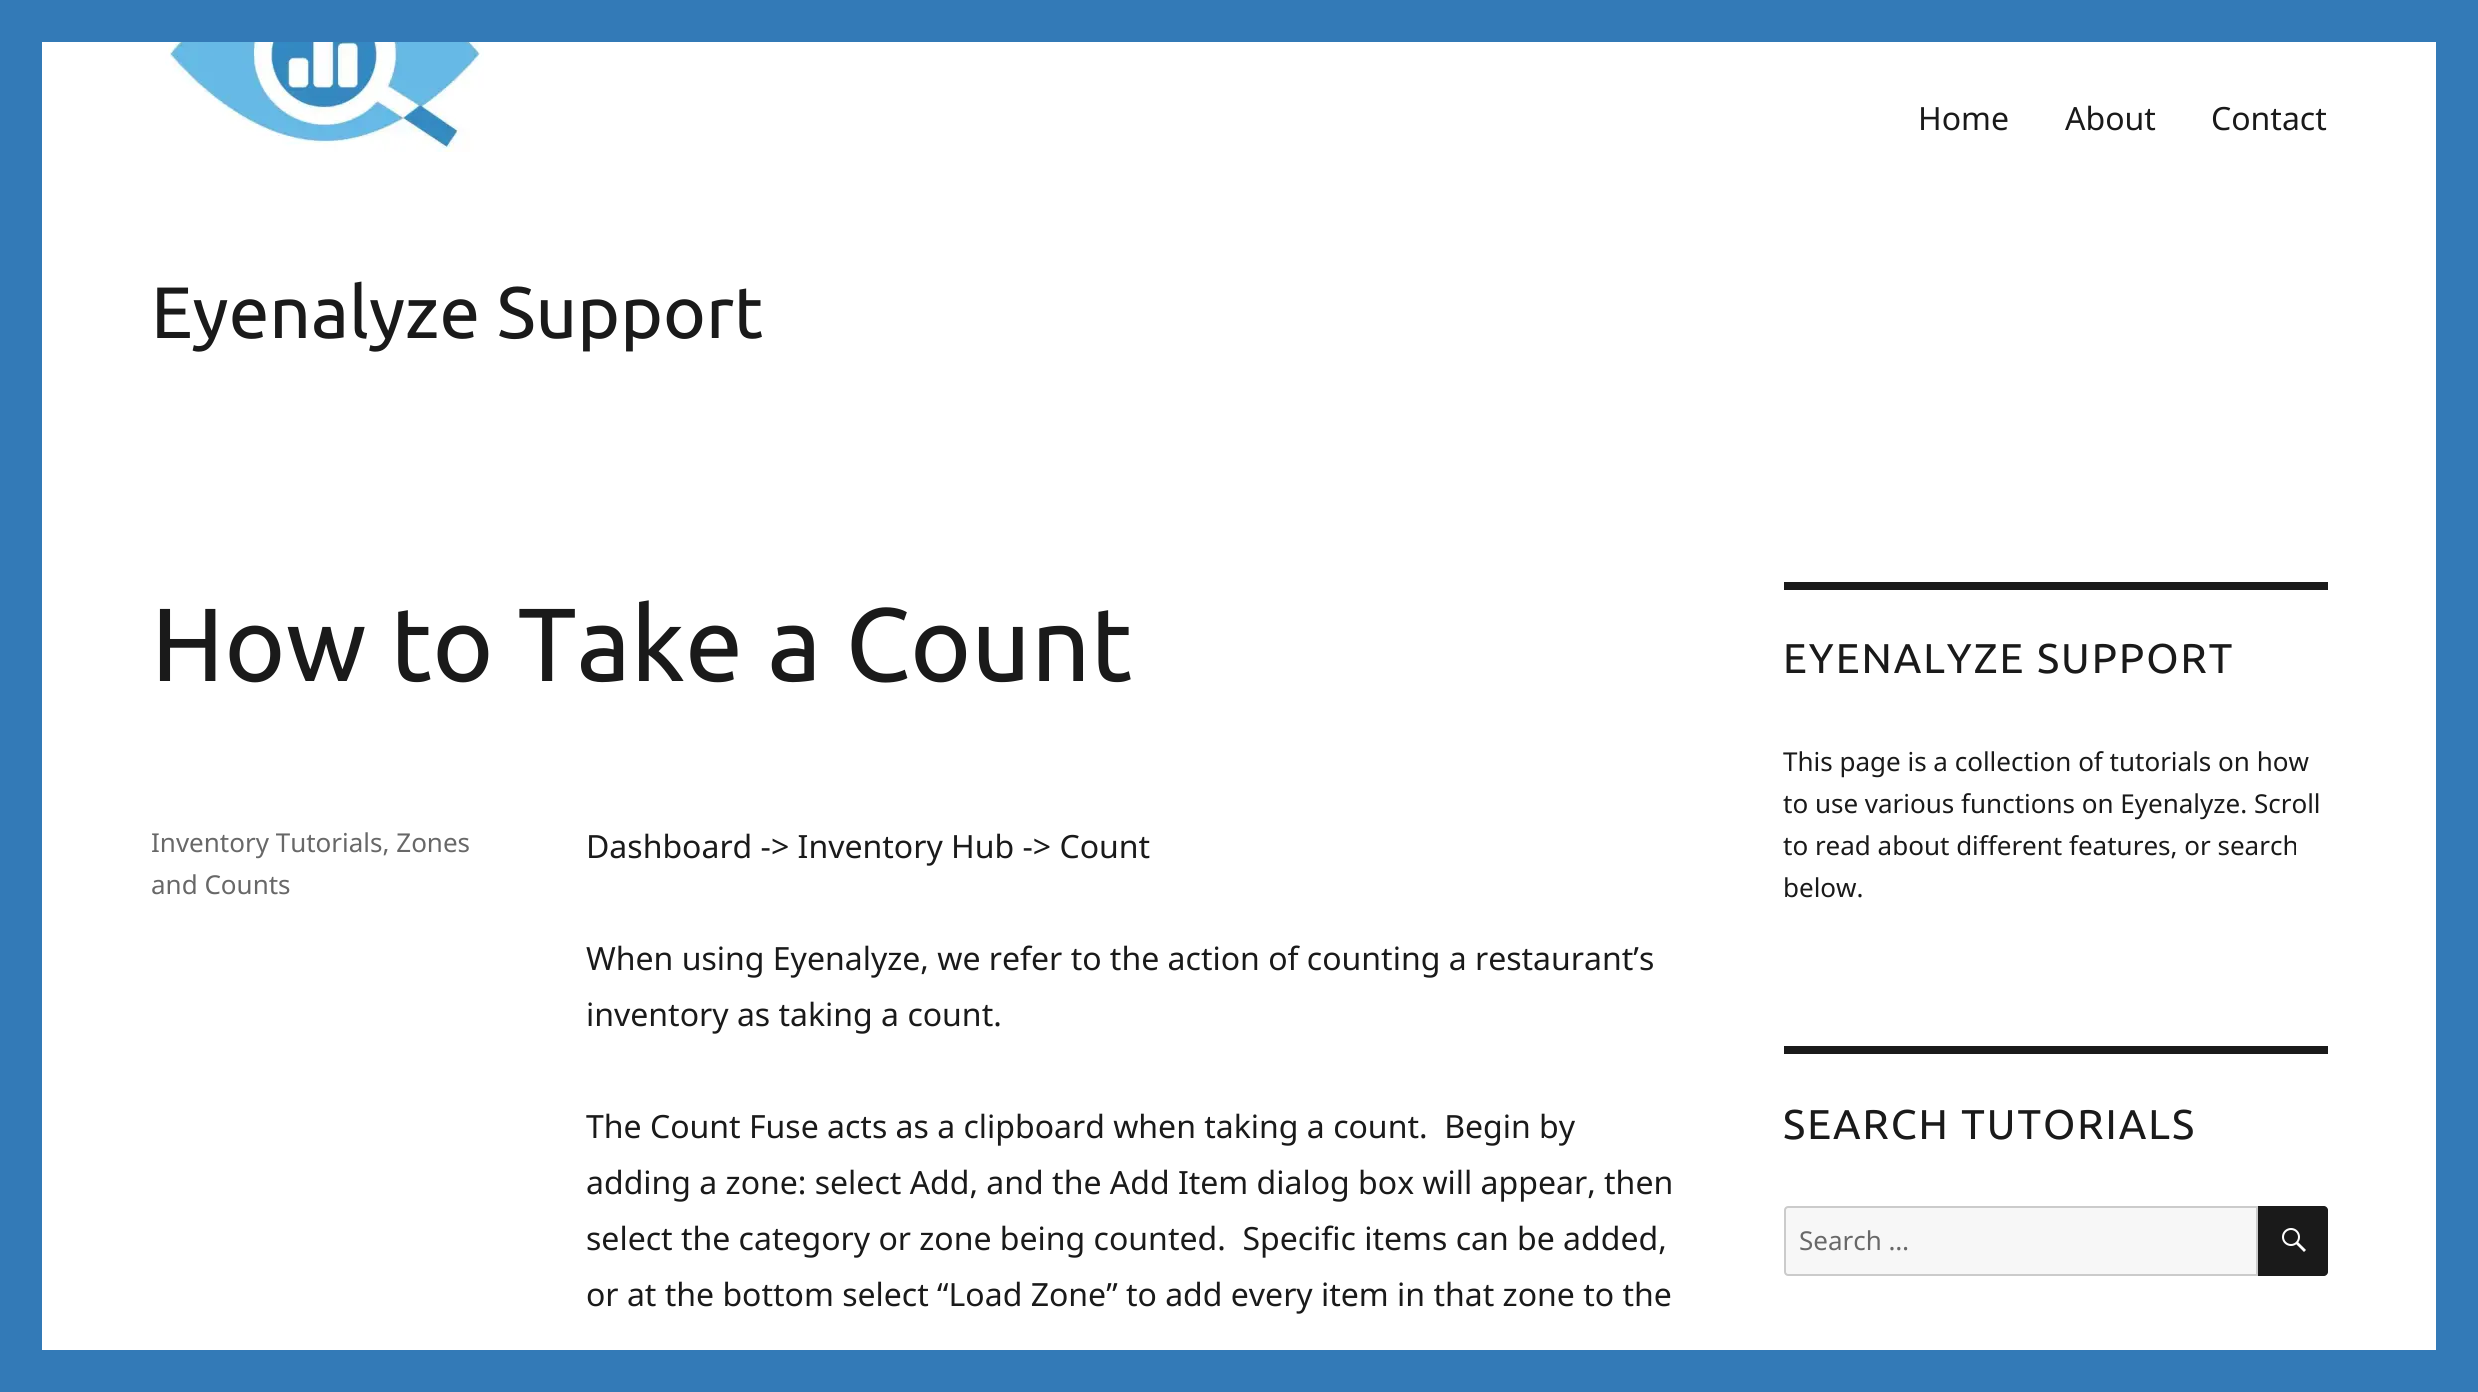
#include <cairo/cairo.h>
#include <math.h>
#include <stddef.h>

static cairo_t *cr;

static void use_color(int r, int g, int b) {
  cairo_set_source_rgb(cr, r / 255.0, g / 255.0, b / 255.0);
}

static void text(double x, double y, const char *s, const char *family, double size, int italic, int bold, int r, int g, int b) {
  cairo_select_font_face(cr, family, italic ? CAIRO_FONT_SLANT_ITALIC : CAIRO_FONT_SLANT_NORMAL,
    bold ? CAIRO_FONT_WEIGHT_BOLD : CAIRO_FONT_WEIGHT_NORMAL);
  cairo_set_font_size(cr, size);
  use_color(r, g, b);
  cairo_move_to(cr, x, y);
  cairo_show_text(cr, s);
}

static void spaced_text(double x, double y, const char *s, double letter, double word) {
  cairo_move_to(cr, x, y);
  while (*s) {
    char ch[5] = {0};
    int n = 0;
    do ch[n++] = *s++; while ((*s & 0xC0) == 0x80);
    cairo_show_text(cr, ch);
    cairo_rel_move_to(cr, letter + word * (*ch == ' '), 0);
  }
}

static void box(double x, double y, double w, double h, int r, int g, int b) {
  use_color(r, g, b);
  cairo_rectangle(cr, x, y, w, h);
  cairo_fill(cr);
}

static void picture(const char *path, double x, double y, double w, double h) {
  cairo_surface_t *image = cairo_image_surface_create_from_png(path);
  cairo_save(cr);
  cairo_set_source_surface(cr, image, x, y);
  cairo_rectangle(cr, x, y, w, h);
  cairo_fill(cr);
  cairo_restore(cr);
  cairo_surface_destroy(image);
}

static void draw(void) {
  use_color(51, 122, 183);
  cairo_paint(cr);
  box(42, 42, 2394, 1308, 255, 255, 255);
  picture("img_01.png", 165, 42, 319, 110);
  box(1784, 582, 544, 8, 26, 26, 26);
  box(1784, 1046, 544, 8, 26, 26, 26);
  use_color(247, 247, 247);
  cairo_new_path(cr);
  cairo_move_to(cr, 1788, 1206);
  cairo_line_to(cr, 2258, 1206);
  cairo_line_to(cr, 2258, 1276);
  cairo_line_to(cr, 1788, 1276);
  cairo_curve_to(cr, 1786, 1276, 1784, 1274, 1784, 1272);
  cairo_line_to(cr, 1784, 1210);
  cairo_curve_to(cr, 1784, 1208, 1786, 1206, 1788, 1206);
  cairo_close_path(cr);
  cairo_fill(cr);
  cairo_new_path(cr);
  cairo_move_to(cr, 1788, 1207);
  cairo_line_to(cr, 2257, 1207);
  cairo_line_to(cr, 2257, 1275);
  cairo_line_to(cr, 1788, 1275);
  cairo_curve_to(cr, 1786.5, 1275, 1785, 1273.5, 1785, 1272);
  cairo_line_to(cr, 1785, 1210);
  cairo_curve_to(cr, 1785, 1208.5, 1786.5, 1207, 1788, 1207);
  cairo_close_path(cr);
  cairo_set_source_rgba(cr, 0.102, 0.102, 0.102, 0.2);
  cairo_stroke(cr);
  use_color(26, 26, 26);
  cairo_new_path(cr);
  cairo_move_to(cr, 2258, 1206);
  cairo_line_to(cr, 2324, 1206);
  cairo_curve_to(cr, 2326, 1206, 2328, 1208, 2328, 1210);
  cairo_line_to(cr, 2328, 1272);
  cairo_curve_to(cr, 2328, 1274, 2326, 1276, 2324, 1276);
  cairo_line_to(cr, 2258, 1276);
  cairo_close_path(cr);
  cairo_fill(cr);
  picture("img_02.png", 2282, 1228, 24, 24);
  text(1918, 130, "Home", "Noto Sans", 32, 0, 0, 26, 26, 26);
  text(2065, 130, "About", "Noto Sans", 32, 0, 0, 26, 26, 26);
  text(2211, 130, "Contact", "Noto Sans", 32, 0, 0, 26, 26, 26);
  text(151, 338, "Eyenalyze Support", "Ubuntu", 72.75, 0, 0, 26, 26, 26);
  text(151, 681, "How to Take a Count", "Ubuntu", 104, 0, 0, 26, 26, 26);
  text(151, 852, "Inventory Tutorials, Zones", "Noto Sans", 26, 0, 0, 104, 104, 104);
  text(151, 894, "and Counts", "Noto Sans", 26, 0, 0, 104, 104, 104);
  text(586, 858, "Dashboard -> Inventory Hub -> Count", "Noto Sans", 32, 0, 0, 26, 26, 26);
  text(586, 970, "When using Eyenalyze, we refer to the action of counting a restaurant’s", "Noto Sans", 32, 0, 0, 26, 26, 26);
  text(586, 1026, "inventory as taking a count.", "Noto Sans", 32, 0, 0, 26, 26, 26);
  text(586, 1138, "The Count Fuse acts as a clipboard when taking a count.  Begin by", "Noto Sans", 32, 0, 0, 26, 26, 26);
  text(586, 1194, "adding a zone: select Add, and the Add Item dialog box will appear, then", "Noto Sans", 32, 0, 0, 26, 26, 26);
  text(586, 1250, "select the category or zone being counted.  Specific items can be added,", "Noto Sans", 32, 0, 0, 26, 26, 26);
  text(586, 1306, "or at the bottom select “Load Zone” to add every item in that zone to the", "Noto Sans", 32, 0, 0, 26, 26, 26);
  cairo_select_font_face(cr, "Ubuntu", CAIRO_FONT_SLANT_NORMAL, CAIRO_FONT_WEIGHT_NORMAL);
  cairo_set_font_size(cr, 41.6);
  spaced_text(1783, 673, "EYENALYZE SUPPORT", 2, 0);
  text(1783, 771, "This page is a collection of tutorials on how", "Noto Sans", 26, 0, 0, 26, 26, 26);
  text(1783, 813, "to use various functions on Eyenalyze. Scroll", "Noto Sans", 26, 0, 0, 26, 26, 26);
  text(1783, 855, "to read about different features, or search", "Noto Sans", 26, 0, 0, 26, 26, 26);
  text(1783, 897, "below.", "Noto Sans", 26, 0, 0, 26, 26, 26);
  cairo_select_font_face(cr, "Ubuntu", CAIRO_FONT_SLANT_NORMAL, CAIRO_FONT_WEIGHT_NORMAL);
  cairo_set_font_size(cr, 41.6);
  spaced_text(1783, 1139, "SEARCH TUTORIALS", 2, 0);
  text(1799, 1250, "Search …", "Noto Sans", 26, 0, 0, 104, 104, 104);
}

int main(void) {
  cairo_surface_t *surface = cairo_image_surface_create(CAIRO_FORMAT_RGB24, 2478, 1392);
  cr = cairo_create(surface);
  cairo_font_options_t *options = cairo_font_options_create();
  cairo_font_options_set_hint_metrics(options, CAIRO_HINT_METRICS_OFF);
  cairo_font_options_set_hint_style(options, CAIRO_HINT_STYLE_NONE);
  cairo_set_font_options(cr, options);
  cairo_set_miter_limit(cr, 4);
  draw();
  cairo_surface_write_to_png(surface, "out.png");
  cairo_font_options_destroy(options);
  cairo_destroy(cr);
  cairo_surface_destroy(surface);
  return 0;
}
